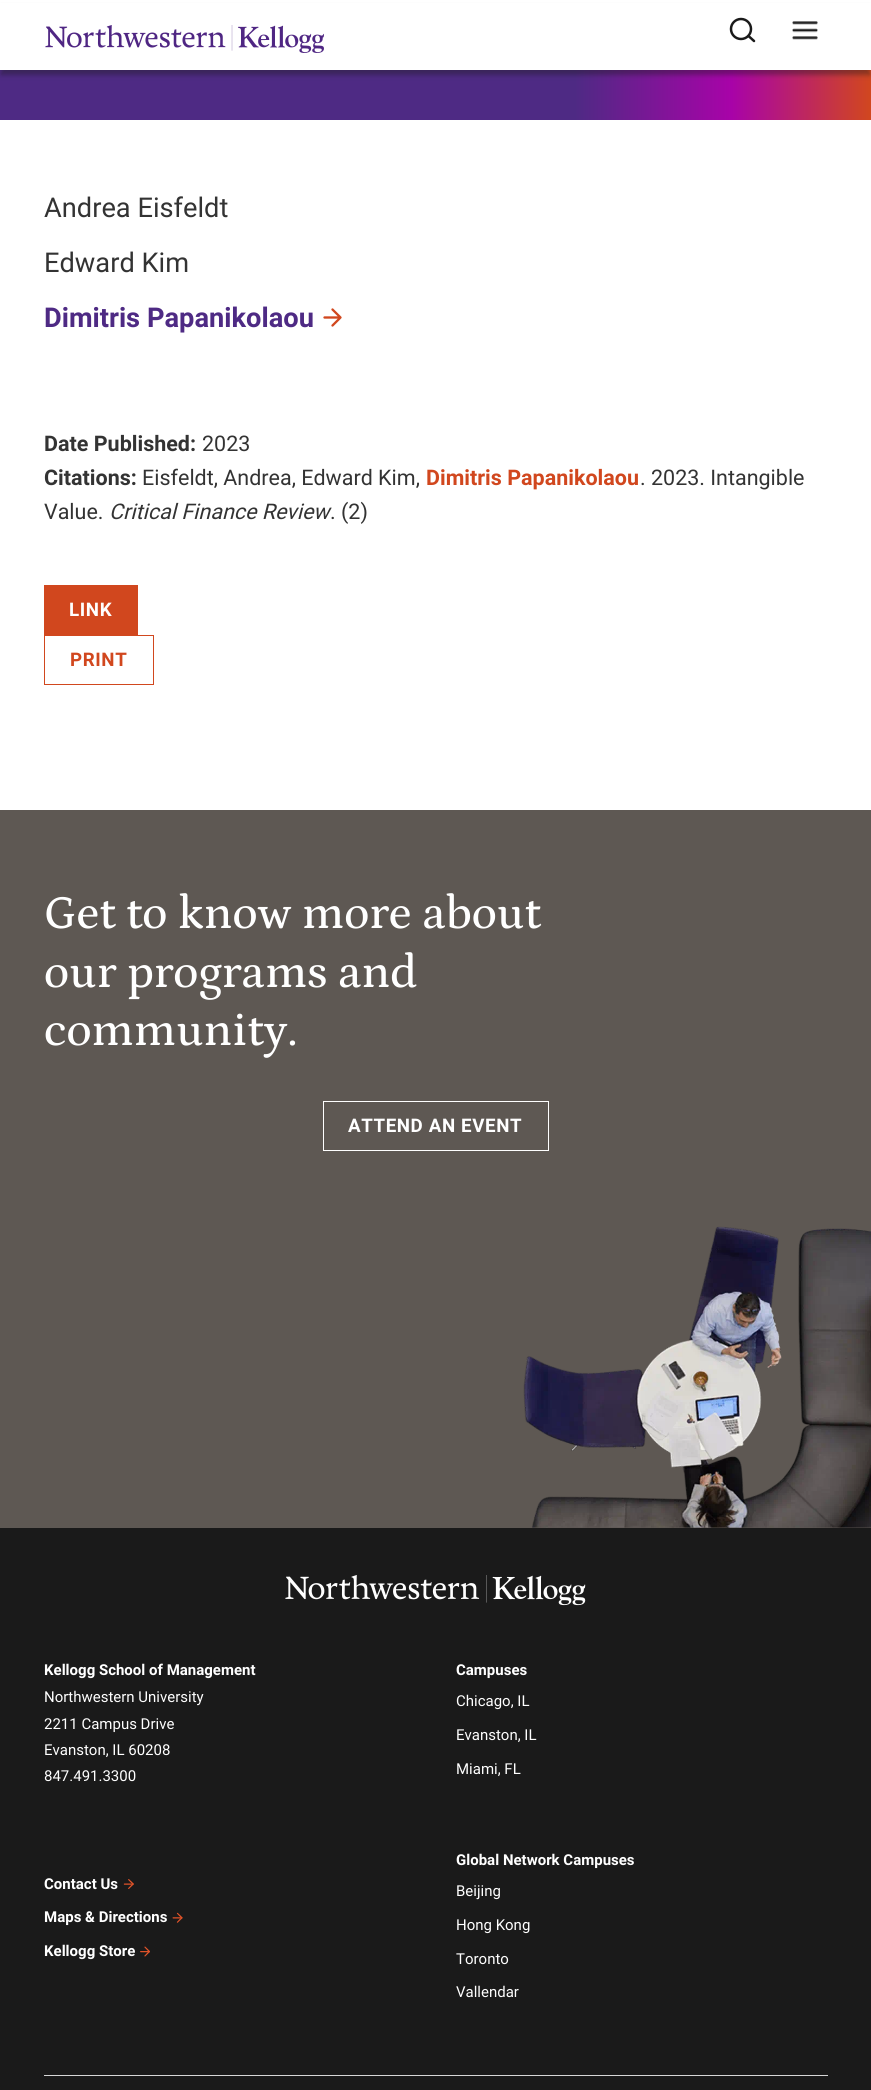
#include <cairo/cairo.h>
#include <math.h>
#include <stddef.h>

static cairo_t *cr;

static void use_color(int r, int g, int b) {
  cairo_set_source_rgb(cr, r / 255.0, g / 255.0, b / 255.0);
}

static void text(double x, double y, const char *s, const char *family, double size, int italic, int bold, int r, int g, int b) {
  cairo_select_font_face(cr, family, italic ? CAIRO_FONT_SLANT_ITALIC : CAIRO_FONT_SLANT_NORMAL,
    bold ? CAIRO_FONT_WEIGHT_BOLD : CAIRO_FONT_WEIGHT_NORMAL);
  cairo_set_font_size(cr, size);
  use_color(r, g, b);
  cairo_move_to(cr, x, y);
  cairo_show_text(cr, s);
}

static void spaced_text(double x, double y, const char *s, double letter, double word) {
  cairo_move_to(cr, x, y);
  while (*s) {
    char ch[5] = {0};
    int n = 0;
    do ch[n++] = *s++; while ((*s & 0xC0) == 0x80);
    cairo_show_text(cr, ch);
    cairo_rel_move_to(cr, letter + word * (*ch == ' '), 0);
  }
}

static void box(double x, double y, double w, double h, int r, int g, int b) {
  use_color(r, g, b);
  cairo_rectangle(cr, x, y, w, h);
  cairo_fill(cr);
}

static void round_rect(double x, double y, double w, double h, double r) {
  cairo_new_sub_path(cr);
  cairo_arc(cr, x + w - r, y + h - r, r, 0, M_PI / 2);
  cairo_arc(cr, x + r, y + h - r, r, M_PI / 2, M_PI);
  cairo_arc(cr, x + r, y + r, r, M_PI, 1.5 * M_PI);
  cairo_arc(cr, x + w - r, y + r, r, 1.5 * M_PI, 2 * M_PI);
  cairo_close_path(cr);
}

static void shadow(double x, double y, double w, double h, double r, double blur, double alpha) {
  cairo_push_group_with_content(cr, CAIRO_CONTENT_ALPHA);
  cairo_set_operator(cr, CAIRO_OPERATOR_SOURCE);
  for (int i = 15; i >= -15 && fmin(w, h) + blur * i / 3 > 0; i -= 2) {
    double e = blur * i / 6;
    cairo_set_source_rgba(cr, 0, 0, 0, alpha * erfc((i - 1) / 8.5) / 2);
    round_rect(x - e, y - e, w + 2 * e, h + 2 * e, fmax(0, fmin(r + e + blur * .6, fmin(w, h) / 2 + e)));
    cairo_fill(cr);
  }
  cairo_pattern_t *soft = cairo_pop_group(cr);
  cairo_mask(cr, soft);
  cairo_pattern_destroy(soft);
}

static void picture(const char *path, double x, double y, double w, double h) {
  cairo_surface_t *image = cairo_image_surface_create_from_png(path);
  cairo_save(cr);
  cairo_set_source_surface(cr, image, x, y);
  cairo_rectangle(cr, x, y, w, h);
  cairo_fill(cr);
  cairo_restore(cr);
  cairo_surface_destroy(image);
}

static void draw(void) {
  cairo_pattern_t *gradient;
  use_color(255, 255, 255);
  cairo_paint(cr);
  gradient = cairo_pattern_create_linear(0, 95, 871, 95);
  cairo_pattern_add_color_stop_rgba(gradient, 0, 0.306, 0.165, 0.518, 1);
  cairo_pattern_add_color_stop_rgba(gradient, 0.66, 0.306, 0.165, 0.518, 1);
  cairo_pattern_add_color_stop_rgba(gradient, 0.84, 0.659, 0.012, 0.659, 1);
  cairo_pattern_add_color_stop_rgba(gradient, 1, 0.82, 0.278, 0.118, 1);
  cairo_set_source(cr, gradient);
  cairo_pattern_destroy(gradient);
  cairo_rectangle(cr, 0, 70, 871, 50);
  cairo_fill(cr);
  use_color(26, 26, 26);
  shadow(1, 8, 869, 67, 0, 2.5, 0.4);
  box(0, 3, 871, 67, 255, 255, 255);
  picture("img_01.png", 45, 25, 279, 28);
  cairo_arc(cr, 741, 29, 10, 0, 2 * M_PI);
  use_color(26, 26, 26);
  cairo_set_line_width(cr, 2.5);
  cairo_stroke(cr);
  cairo_new_path(cr);
  cairo_move_to(cr, 754, 41);
  cairo_line_to(cr, 748.5, 36);
  cairo_set_line_cap(cr, CAIRO_LINE_CAP_ROUND);
  cairo_set_line_join(cr, CAIRO_LINE_JOIN_ROUND);
  cairo_stroke(cr);
  picture("img_02.png", 792, 21, 26, 19);
  cairo_new_path(cr);
  cairo_move_to(cr, 324.5, 317.5);
  cairo_line_to(cr, 340.5, 317.5);
  cairo_move_to(cr, 332.5, 309.5);
  cairo_line_to(cr, 340.5, 317.5);
  cairo_line_to(cr, 332.5, 325.5);
  use_color(209, 71, 30);
  cairo_set_line_width(cr, 2.3);
  cairo_stroke(cr);
  box(44, 585, 94, 50, 209, 71, 30);
  cairo_rectangle(cr, 44.5, 635.5, 109, 49);
  cairo_set_line_width(cr, 1);
  cairo_set_line_cap(cr, CAIRO_LINE_CAP_BUTT);
  cairo_set_line_join(cr, CAIRO_LINE_JOIN_MITER);
  cairo_stroke(cr);
  box(0, 810, 871, 718, 94, 88, 83);
  cairo_rectangle(cr, 323.5, 1101.5, 225, 49);
  use_color(255, 255, 255);
  cairo_stroke(cr);
  picture("img_03.png", 523, 1226, 348, 302);
  box(0, 1528, 871, 562, 26, 26, 26);
  picture("img_04.png", 285, 1575, 301, 31);
  picture("img_05.png", 123, 1879, 11, 10);
  picture("img_06.png", 172, 1912, 11, 11);
  picture("img_07.png", 140, 1946, 10, 11);
  box(44, 2075, 784, 1, 215, 215, 215);
  text(44, 217, "Andrea Eisfeldt", "Roboto", 27.25, 0, 0, 51, 51, 51);
  text(44, 272, "Edward Kim", "Roboto", 27.25, 0, 0, 51, 51, 51);
  text(44, 327, "Dimitris Papanikolaou", "Roboto", 27.25, 0, 1, 78, 42, 132);
  text(44, 451, "Date Published:", "Roboto", 21.5, 0, 1, 51, 51, 51);
  text(202, 451, "2023", "Roboto", 21.5, 0, 0, 51, 51, 51);
  text(44, 485, "Citations:", "Roboto", 21.5, 0, 1, 51, 51, 51);
  text(142, 485, "Eisfeldt, Andrea, Edward Kim,", "Roboto", 21.5, 0, 0, 51, 51, 51);
  text(426, 485, "Dimitris Papanikolaou", "Roboto", 21.5, 0, 1, 209, 71, 30);
  text(640, 485, ". 2023. Intangible", "Roboto", 21.5, 0, 0, 51, 51, 51);
  text(44, 519, "Value.", "Roboto", 21.5, 0, 0, 51, 51, 51);
  text(109, 519, "Critical Finance Review", "Roboto", 21.5, 1, 0, 51, 51, 51);
  text(330, 519, ". (2)", "Roboto", 21.5, 0, 0, 51, 51, 51);
  cairo_select_font_face(cr, "Roboto", CAIRO_FONT_SLANT_NORMAL, CAIRO_FONT_WEIGHT_BOLD);
  cairo_set_font_size(cr, 18.75);
  use_color(255, 255, 255);
  spaced_text(69, 616, "LINK", 0.6, 0);
  use_color(209, 71, 30);
  spaced_text(70, 666, "PRINT", 0.6, 0);
  text(44, 928, "Get to know more about", "Petrona Medium", 47.5, 0, 0, 255, 255, 255);
  text(44, 987, "our programs and", "Petrona Medium", 47.5, 0, 0, 255, 255, 255);
  text(44, 1045, "community.", "Petrona Medium", 47.5, 0, 0, 255, 255, 255);
  cairo_select_font_face(cr, "Roboto", CAIRO_FONT_SLANT_NORMAL, CAIRO_FONT_WEIGHT_BOLD);
  cairo_set_font_size(cr, 18.75);
  spaced_text(348, 1132, "ATTEND AN EVENT", 0.6, 0);
  text(44, 1675, "Kellogg School of Management", "Roboto", 15, 0, 1, 255, 255, 255);
  text(44, 1702, "Northwestern University", "Roboto", 15, 0, 0, 255, 255, 255);
  text(44, 1729, "2211 Campus Drive", "Roboto", 15, 0, 0, 255, 255, 255);
  text(44, 1755, "Evanston, IL 60208", "Roboto", 15, 0, 0, 255, 255, 255);
  text(44, 1781, "847.491.3300", "Roboto", 15, 0, 0, 255, 255, 255);
  text(44, 1889, "Contact Us", "Roboto", 15, 0, 1, 255, 255, 255);
  text(44, 1922, "Maps & Directions", "Roboto", 15, 0, 1, 255, 255, 255);
  text(44, 1956, "Kellogg Store", "Roboto", 15, 0, 1, 255, 255, 255);
  text(456, 1675, "Campuses", "Roboto", 15, 0, 1, 255, 255, 255);
  text(456, 1706, "Chicago, IL", "Roboto", 15, 0, 0, 255, 255, 255);
  text(456, 1740, "Evanston, IL", "Roboto", 15, 0, 0, 255, 255, 255);
  text(456, 1774, "Miami, FL", "Roboto", 15, 0, 0, 255, 255, 255);
  text(456, 1865, "Global Network Campuses", "Roboto", 15, 0, 1, 255, 255, 255);
  text(456, 1896, "Beijing", "Roboto", 15, 0, 0, 255, 255, 255);
  text(456, 1930, "Hong Kong", "Roboto", 15, 0, 0, 255, 255, 255);
  text(456, 1964, "Toronto", "Roboto", 15, 0, 0, 255, 255, 255);
  text(456, 1997, "Vallendar", "Roboto", 15, 0, 0, 255, 255, 255);
}

int main(void) {
  cairo_surface_t *surface = cairo_image_surface_create(CAIRO_FORMAT_RGB24, 871, 2090);
  cr = cairo_create(surface);
  cairo_font_options_t *options = cairo_font_options_create();
  cairo_font_options_set_hint_metrics(options, CAIRO_HINT_METRICS_OFF);
  cairo_font_options_set_hint_style(options, CAIRO_HINT_STYLE_NONE);
  cairo_set_font_options(cr, options);
  cairo_set_miter_limit(cr, 4);
  draw();
  cairo_surface_write_to_png(surface, "out.png");
  cairo_font_options_destroy(options);
  cairo_destroy(cr);
  cairo_surface_destroy(surface);
  return 0;
}
